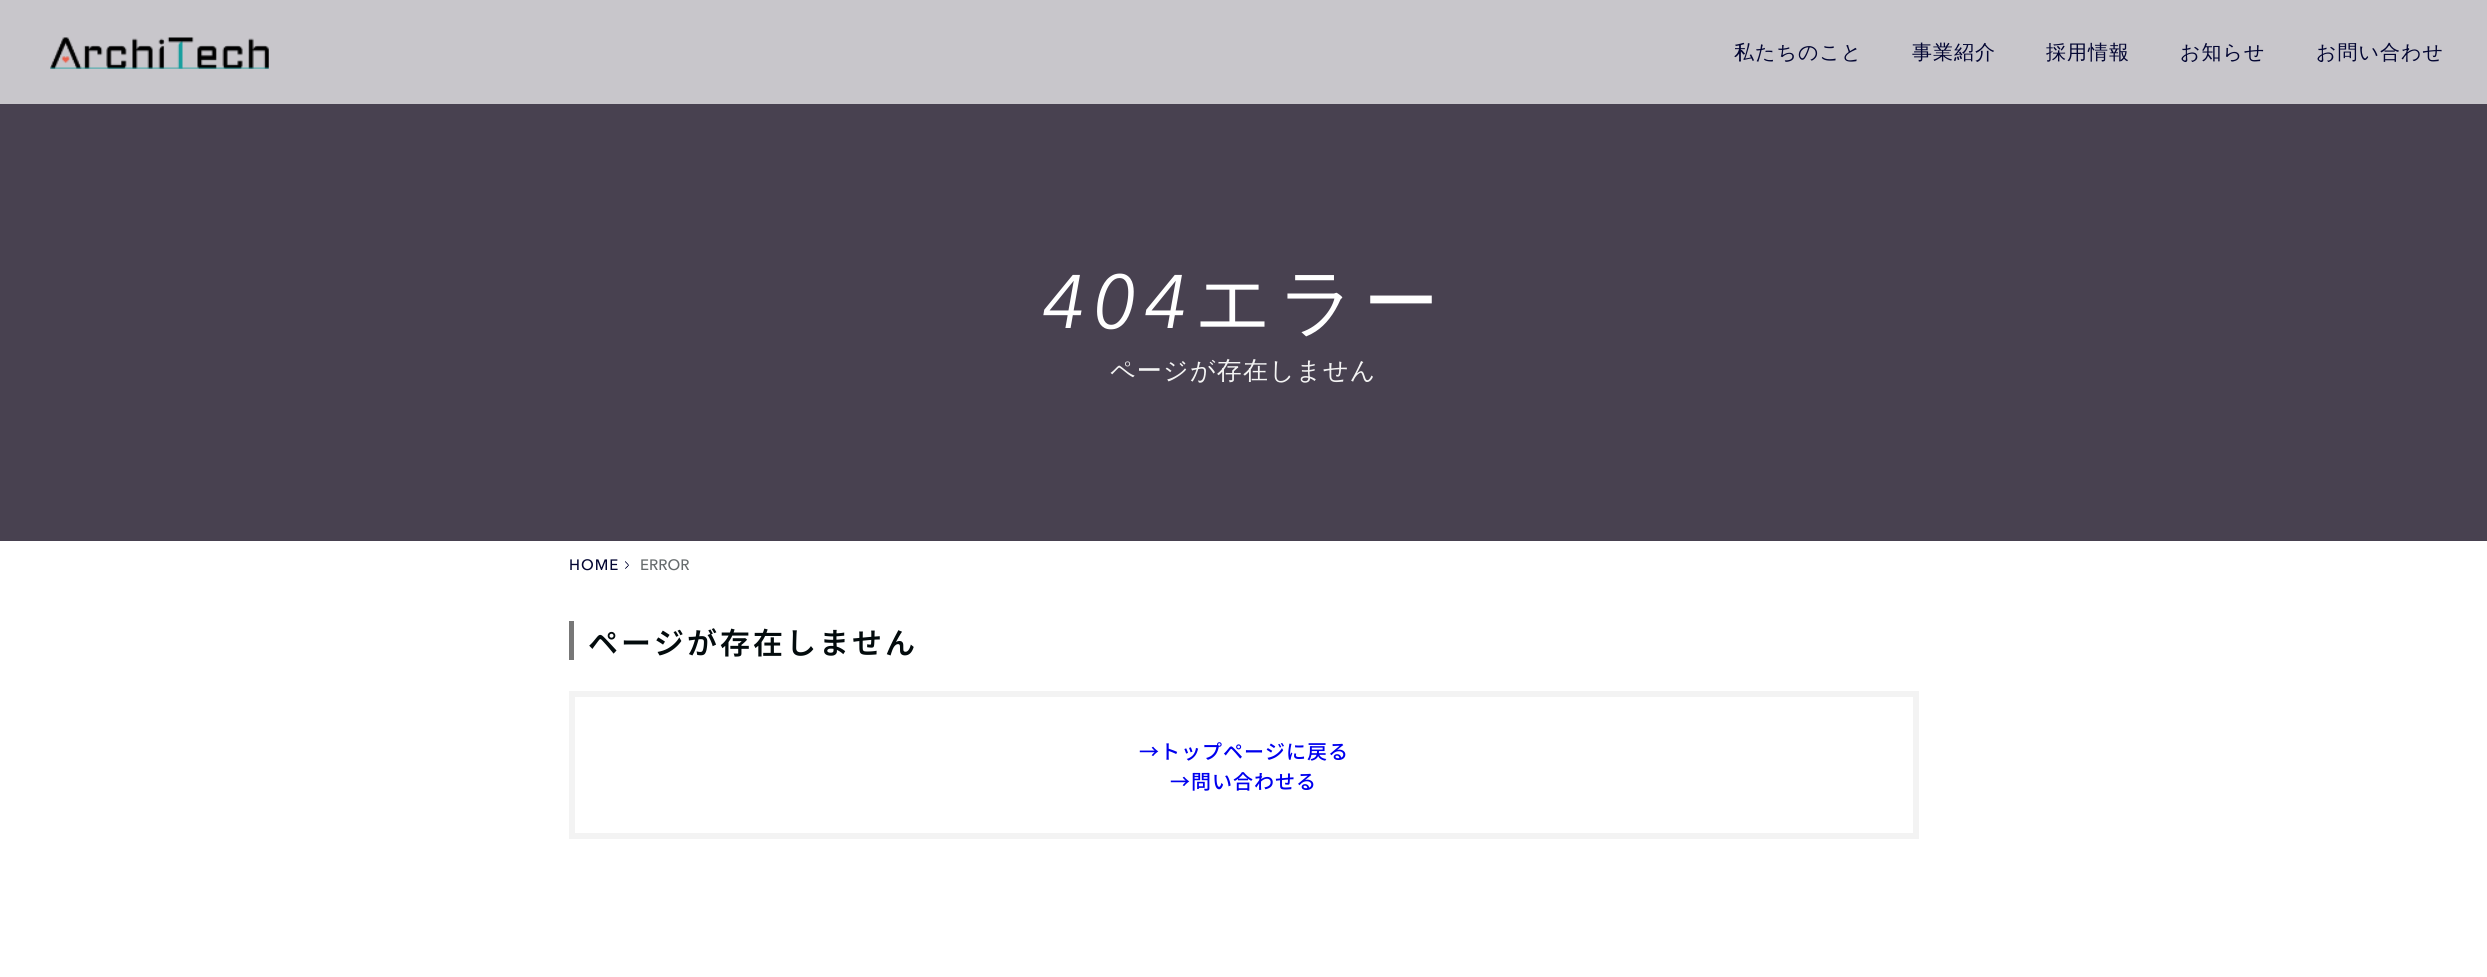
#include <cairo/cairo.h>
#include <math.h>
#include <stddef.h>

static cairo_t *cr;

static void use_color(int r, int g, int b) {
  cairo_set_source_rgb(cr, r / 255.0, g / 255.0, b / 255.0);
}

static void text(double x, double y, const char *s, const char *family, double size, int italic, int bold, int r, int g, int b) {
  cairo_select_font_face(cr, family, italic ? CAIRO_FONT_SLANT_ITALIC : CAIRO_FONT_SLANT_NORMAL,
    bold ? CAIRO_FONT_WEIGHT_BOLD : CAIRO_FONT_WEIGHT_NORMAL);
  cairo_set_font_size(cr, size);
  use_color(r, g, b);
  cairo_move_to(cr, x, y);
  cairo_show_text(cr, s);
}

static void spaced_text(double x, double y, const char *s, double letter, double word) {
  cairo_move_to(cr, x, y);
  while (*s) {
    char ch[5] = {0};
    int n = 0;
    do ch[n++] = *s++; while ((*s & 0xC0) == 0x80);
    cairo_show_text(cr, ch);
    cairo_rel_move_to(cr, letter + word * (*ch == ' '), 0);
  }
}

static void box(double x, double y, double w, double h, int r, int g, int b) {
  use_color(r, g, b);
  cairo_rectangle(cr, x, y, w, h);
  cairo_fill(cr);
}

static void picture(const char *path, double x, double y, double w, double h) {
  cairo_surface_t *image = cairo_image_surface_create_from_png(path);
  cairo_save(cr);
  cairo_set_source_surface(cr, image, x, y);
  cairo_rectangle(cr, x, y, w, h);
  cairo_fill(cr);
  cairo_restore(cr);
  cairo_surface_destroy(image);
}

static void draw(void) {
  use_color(255, 255, 255);
  cairo_paint(cr);
  box(0, 0, 2487, 104, 200, 198, 203);
  picture("img_01.png", 50, 37, 219, 32);
  box(0, 104, 2487, 437, 72, 65, 80);
  picture("img_02.png", 625, 561, 4, 8);
  box(569, 621, 5, 39, 119, 119, 119);
  cairo_rectangle(cr, 572, 694, 1344, 142);
  use_color(243, 243, 243);
  cairo_set_line_width(cr, 6);
  cairo_stroke(cr);
  cairo_select_font_face(cr, "WenQuanYi Zen Hei Medium", CAIRO_FONT_SLANT_NORMAL, CAIRO_FONT_WEIGHT_NORMAL);
  cairo_set_font_size(cr, 20);
  use_color(3, 6, 51);
  spaced_text(1734, 59, "私たちのこと", 1, 0);
  spaced_text(1912, 59, "事業紹介", 1, 0);
  spaced_text(2046, 59, "採用情報", 1, 0);
  spaced_text(2180, 59, "お知らせ", 1, 0);
  spaced_text(2316, 59, "お問い合わせ", 1, 0);
  cairo_select_font_face(cr, "Avenir Next", CAIRO_FONT_SLANT_ITALIC, CAIRO_FONT_WEIGHT_NORMAL);
  cairo_set_font_size(cr, 75);
  use_color(255, 255, 255);
  spaced_text(1042, 328, "404", 7.5, 0);
  cairo_select_font_face(cr, "WenQuanYi Zen Hei Medium", CAIRO_FONT_SLANT_NORMAL, CAIRO_FONT_WEIGHT_NORMAL);
  spaced_text(1195, 328, "エラー", 7.5, 0);
  cairo_set_font_size(cr, 25);
  use_color(243, 243, 243);
  spaced_text(1110, 379, "ページが存在しません", 1.25, 0);
  cairo_select_font_face(cr, "Avenir Next Medium", CAIRO_FONT_SLANT_NORMAL, CAIRO_FONT_WEIGHT_NORMAL);
  cairo_set_font_size(cr, 15);
  use_color(3, 6, 51);
  spaced_text(569, 570, "HOME", 1, 0);
  text(640, 570, "ERROR", "Avenir Next Medium", 15, 0, 0, 103, 108, 109);
  cairo_select_font_face(cr, "Noto Sans JP SemiBold", CAIRO_FONT_SLANT_NORMAL, CAIRO_FONT_WEIGHT_NORMAL);
  cairo_set_font_size(cr, 30);
  use_color(3, 11, 13);
  spaced_text(588, 654, "ページが存在しません", 3, 0);
  cairo_select_font_face(cr, "Noto Sans JP Medium", CAIRO_FONT_SLANT_NORMAL, CAIRO_FONT_WEIGHT_NORMAL);
  cairo_set_font_size(cr, 20);
  use_color(0, 0, 238);
  spaced_text(1139, 759, "→トップページに戻る", 1, 0);
  spaced_text(1170, 789, "→問い合わせる", 1, 0);
}

int main(void) {
  cairo_surface_t *surface = cairo_image_surface_create(CAIRO_FORMAT_RGB24, 2487, 977);
  cr = cairo_create(surface);
  cairo_font_options_t *options = cairo_font_options_create();
  cairo_font_options_set_hint_metrics(options, CAIRO_HINT_METRICS_OFF);
  cairo_font_options_set_hint_style(options, CAIRO_HINT_STYLE_NONE);
  cairo_set_font_options(cr, options);
  cairo_set_miter_limit(cr, 4);
  draw();
  cairo_surface_write_to_png(surface, "out.png");
  cairo_font_options_destroy(options);
  cairo_destroy(cr);
  cairo_surface_destroy(surface);
  return 0;
}
